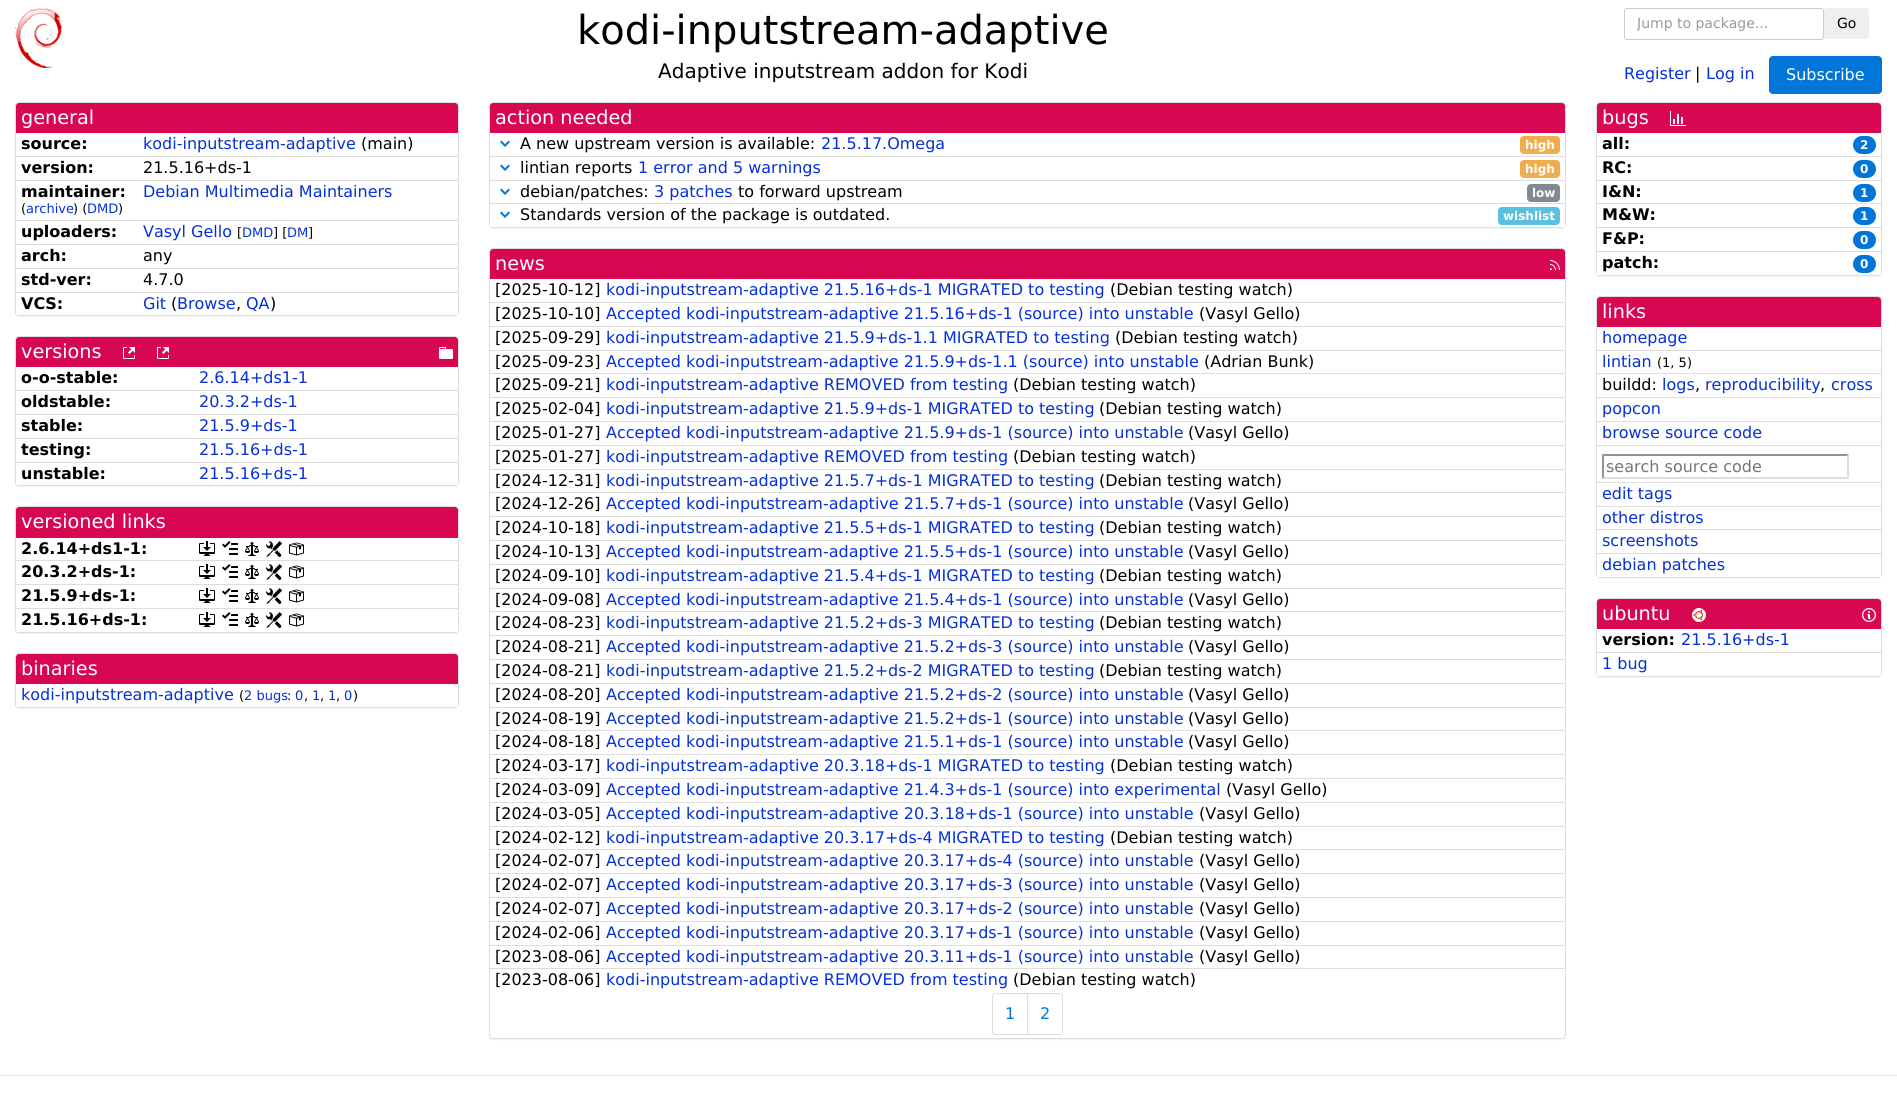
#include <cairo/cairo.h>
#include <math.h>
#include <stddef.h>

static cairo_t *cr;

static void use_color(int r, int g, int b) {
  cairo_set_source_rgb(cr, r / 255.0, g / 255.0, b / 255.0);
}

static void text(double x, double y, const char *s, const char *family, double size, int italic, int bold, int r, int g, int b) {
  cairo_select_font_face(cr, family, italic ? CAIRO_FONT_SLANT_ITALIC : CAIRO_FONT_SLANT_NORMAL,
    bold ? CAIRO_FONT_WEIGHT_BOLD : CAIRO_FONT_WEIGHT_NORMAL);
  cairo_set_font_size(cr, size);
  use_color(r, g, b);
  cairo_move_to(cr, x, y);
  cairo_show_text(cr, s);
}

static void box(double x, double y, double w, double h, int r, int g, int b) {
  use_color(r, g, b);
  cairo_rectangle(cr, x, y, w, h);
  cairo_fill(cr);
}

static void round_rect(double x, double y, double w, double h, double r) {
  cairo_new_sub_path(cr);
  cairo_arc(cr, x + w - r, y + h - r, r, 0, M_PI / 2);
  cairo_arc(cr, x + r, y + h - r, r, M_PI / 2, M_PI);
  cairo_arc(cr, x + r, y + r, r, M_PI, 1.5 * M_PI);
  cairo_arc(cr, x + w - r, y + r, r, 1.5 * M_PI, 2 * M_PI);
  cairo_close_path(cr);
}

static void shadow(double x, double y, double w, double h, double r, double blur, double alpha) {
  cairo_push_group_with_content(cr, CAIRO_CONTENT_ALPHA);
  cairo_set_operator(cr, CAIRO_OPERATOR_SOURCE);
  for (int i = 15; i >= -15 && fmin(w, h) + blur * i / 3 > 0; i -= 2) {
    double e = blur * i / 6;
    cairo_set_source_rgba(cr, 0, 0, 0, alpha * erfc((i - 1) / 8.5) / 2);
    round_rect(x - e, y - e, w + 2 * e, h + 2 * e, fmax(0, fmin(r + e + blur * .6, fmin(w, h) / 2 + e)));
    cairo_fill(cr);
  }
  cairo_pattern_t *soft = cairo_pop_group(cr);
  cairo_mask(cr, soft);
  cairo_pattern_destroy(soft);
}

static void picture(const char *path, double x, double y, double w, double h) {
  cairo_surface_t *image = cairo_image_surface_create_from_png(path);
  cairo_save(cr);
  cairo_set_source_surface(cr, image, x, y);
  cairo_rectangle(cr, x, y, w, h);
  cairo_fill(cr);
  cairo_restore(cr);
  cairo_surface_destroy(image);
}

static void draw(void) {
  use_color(255, 255, 255);
  cairo_paint(cr);
  picture("img_01.png", 15, 8, 47, 60);
  round_rect(1624.5, 8.5, 199, 31, 2.5);
  use_color(204, 204, 204);
  cairo_set_line_width(cr, 1);
  cairo_stroke(cr);
  use_color(239, 239, 239);
  round_rect(1824, 8, 45, 31, 3);
  cairo_fill(cr);
  use_color(2, 117, 216);
  round_rect(1769.5, 56.5, 112, 37, 3.5);
  cairo_fill_preserve(cr);
  cairo_stroke(cr);
  use_color(0, 0, 0);
  shadow(15, 103, 444, 214, 4, 0.5, 0.05);
  round_rect(15.5, 102.5, 443, 213, 3.5);
  use_color(221, 221, 221);
  cairo_stroke(cr);
  use_color(215, 7, 81);
  cairo_new_path(cr);
  cairo_move_to(cr, 19, 103);
  cairo_line_to(cr, 455, 103);
  cairo_curve_to(cr, 456.5, 103, 458, 104.5, 458, 106);
  cairo_line_to(cr, 458, 134);
  cairo_line_to(cr, 16, 134);
  cairo_line_to(cr, 16, 106);
  cairo_curve_to(cr, 16, 104.5, 17.5, 103, 19, 103);
  cairo_close_path(cr);
  cairo_fill(cr);
  box(16, 133, 442, 182, 255, 255, 255);
  box(16, 156, 442, 1, 221, 221, 221);
  box(16, 180, 442, 1, 221, 221, 221);
  box(16, 220, 442, 1, 221, 221, 221);
  box(16, 244, 442, 1, 221, 221, 221);
  box(16, 268, 442, 1, 221, 221, 221);
  box(16, 292, 442, 1, 221, 221, 221);
  use_color(0, 0, 0);
  shadow(15, 337, 444, 150, 4, 0.5, 0.05);
  round_rect(15.5, 336.5, 443, 149, 3.5);
  use_color(221, 221, 221);
  cairo_stroke(cr);
  use_color(215, 7, 81);
  cairo_new_path(cr);
  cairo_move_to(cr, 19, 337);
  cairo_line_to(cr, 455, 337);
  cairo_curve_to(cr, 456.5, 337, 458, 338.5, 458, 340);
  cairo_line_to(cr, 458, 368);
  cairo_line_to(cr, 16, 368);
  cairo_line_to(cr, 16, 340);
  cairo_curve_to(cr, 16, 338.5, 17.5, 337, 19, 337);
  cairo_close_path(cr);
  cairo_fill(cr);
  picture("img_02.png", 123, 347, 12, 12);
  picture("img_02.png", 157, 347, 12, 12);
  picture("img_03.png", 439, 347, 14, 12);
  box(16, 367, 442, 118, 255, 255, 255);
  box(16, 390, 442, 1, 221, 221, 221);
  box(16, 414, 442, 1, 221, 221, 221);
  box(16, 438, 442, 1, 221, 221, 221);
  box(16, 462, 442, 1, 221, 221, 221);
  use_color(0, 0, 0);
  shadow(15, 507, 444, 127, 4, 0.5, 0.05);
  round_rect(15.5, 506.5, 443, 126, 3.5);
  use_color(221, 221, 221);
  cairo_stroke(cr);
  use_color(215, 7, 81);
  cairo_new_path(cr);
  cairo_move_to(cr, 19, 507);
  cairo_line_to(cr, 455, 507);
  cairo_curve_to(cr, 456.5, 507, 458, 508.5, 458, 510);
  cairo_line_to(cr, 458, 539);
  cairo_line_to(cr, 16, 539);
  cairo_line_to(cr, 16, 510);
  cairo_curve_to(cr, 16, 508.5, 17.5, 507, 19, 507);
  cairo_close_path(cr);
  cairo_fill(cr);
  box(16, 538, 442, 94, 255, 255, 255);
  box(16, 560, 442, 1, 221, 221, 221);
  picture("img_04.png", 199, 541, 16, 15);
  picture("img_05.png", 222, 541, 16, 14);
  picture("img_06.png", 245, 542, 14, 14);
  picture("img_07.png", 266, 541, 16, 16);
  picture("img_08.png", 289, 542, 15, 14);
  box(16, 584, 442, 1, 221, 221, 221);
  picture("img_04.png", 199, 564, 16, 15);
  picture("img_05.png", 222, 564, 16, 14);
  picture("img_06.png", 245, 565, 14, 14);
  picture("img_07.png", 266, 564, 16, 16);
  picture("img_08.png", 289, 565, 15, 14);
  picture("img_04.png", 199, 588, 16, 15);
  picture("img_05.png", 222, 588, 16, 14);
  picture("img_06.png", 245, 589, 14, 14);
  picture("img_07.png", 266, 588, 16, 16);
  picture("img_08.png", 289, 589, 15, 14);
  box(16, 608, 442, 1, 221, 221, 221);
  picture("img_04.png", 199, 612, 16, 15);
  picture("img_05.png", 222, 612, 16, 14);
  picture("img_06.png", 245, 613, 14, 14);
  picture("img_07.png", 266, 612, 16, 16);
  picture("img_08.png", 289, 613, 15, 14);
  use_color(0, 0, 0);
  shadow(15, 654, 444, 55, 4, 0.5, 0.05);
  round_rect(15.5, 653.5, 443, 54, 3.5);
  use_color(221, 221, 221);
  cairo_stroke(cr);
  use_color(215, 7, 81);
  cairo_new_path(cr);
  cairo_move_to(cr, 19, 654);
  cairo_line_to(cr, 455, 654);
  cairo_curve_to(cr, 456.5, 654, 458, 655.5, 458, 657);
  cairo_line_to(cr, 458, 685);
  cairo_line_to(cr, 16, 685);
  cairo_line_to(cr, 16, 657);
  cairo_curve_to(cr, 16, 655.5, 17.5, 654, 19, 654);
  cairo_close_path(cr);
  cairo_fill(cr);
  box(16, 684, 442, 23, 255, 255, 255);
  use_color(0, 0, 0);
  shadow(489, 103, 1077, 126, 4, 0.5, 0.05);
  round_rect(489.5, 102.5, 1076, 125, 3.5);
  use_color(221, 221, 221);
  cairo_stroke(cr);
  use_color(215, 7, 81);
  cairo_new_path(cr);
  cairo_move_to(cr, 493, 103);
  cairo_line_to(cr, 1562, 103);
  cairo_curve_to(cr, 1563.5, 103, 1565, 104.5, 1565, 106);
  cairo_line_to(cr, 1565, 134);
  cairo_line_to(cr, 490, 134);
  cairo_line_to(cr, 490, 106);
  cairo_curve_to(cr, 490, 104.5, 491.5, 103, 493, 103);
  cairo_close_path(cr);
  cairo_fill(cr);
  box(490, 133, 1075, 94, 255, 255, 255);
  box(490, 156, 1075, 1, 221, 221, 221);
  picture("img_09.png", 500, 140, 10, 7);
  use_color(240, 173, 78);
  round_rect(1520, 136, 40, 18, 4);
  cairo_fill(cr);
  box(490, 180, 1075, 1, 221, 221, 221);
  picture("img_09.png", 500, 164, 10, 7);
  use_color(240, 173, 78);
  round_rect(1520, 160, 40, 18, 4);
  cairo_fill(cr);
  picture("img_09.png", 500, 188, 10, 7);
  use_color(129, 138, 145);
  round_rect(1527, 184, 33, 18, 4);
  cairo_fill(cr);
  box(490, 203, 1075, 1, 221, 221, 221);
  picture("img_09.png", 500, 211, 10, 7);
  use_color(91, 192, 222);
  round_rect(1498, 207, 62, 18, 4);
  cairo_fill(cr);
  use_color(0, 0, 0);
  shadow(489, 249, 1077, 791, 4, 0.5, 0.05);
  use_color(255, 255, 255);
  round_rect(489.5, 248.5, 1076, 790, 3.5);
  cairo_fill_preserve(cr);
  use_color(221, 221, 221);
  cairo_stroke(cr);
  use_color(215, 7, 81);
  cairo_new_path(cr);
  cairo_move_to(cr, 493, 249);
  cairo_line_to(cr, 1562, 249);
  cairo_curve_to(cr, 1563.5, 249, 1565, 250.5, 1565, 252);
  cairo_line_to(cr, 1565, 280);
  cairo_line_to(cr, 490, 280);
  cairo_line_to(cr, 490, 252);
  cairo_curve_to(cr, 490, 250.5, 491.5, 249, 493, 249);
  cairo_close_path(cr);
  cairo_fill(cr);
  picture("img_10.png", 1550, 260, 10, 10);
  box(490, 279, 1075, 1, 255, 255, 255);
  box(490, 302, 1075, 1, 221, 221, 221);
  box(490, 326, 1075, 1, 221, 221, 221);
  box(490, 350, 1075, 1, 221, 221, 221);
  box(490, 373, 1075, 1, 221, 221, 221);
  box(490, 397, 1075, 1, 221, 221, 221);
  box(490, 421, 1075, 1, 221, 221, 221);
  box(490, 445, 1075, 1, 221, 221, 221);
  box(490, 469, 1075, 1, 221, 221, 221);
  box(490, 492, 1075, 1, 221, 221, 221);
  box(490, 516, 1075, 1, 221, 221, 221);
  box(490, 540, 1075, 1, 221, 221, 221);
  box(490, 564, 1075, 1, 221, 221, 221);
  box(490, 588, 1075, 1, 221, 221, 221);
  box(490, 611, 1075, 1, 221, 221, 221);
  box(490, 635, 1075, 1, 221, 221, 221);
  box(490, 659, 1075, 1, 221, 221, 221);
  box(490, 683, 1075, 1, 221, 221, 221);
  box(490, 707, 1075, 1, 221, 221, 221);
  box(490, 730, 1075, 1, 221, 221, 221);
  box(490, 754, 1075, 1, 221, 221, 221);
  box(490, 778, 1075, 1, 221, 221, 221);
  box(490, 802, 1075, 1, 221, 221, 221);
  box(490, 826, 1075, 1, 221, 221, 221);
  box(490, 849, 1075, 1, 221, 221, 221);
  box(490, 873, 1075, 1, 221, 221, 221);
  box(490, 897, 1075, 1, 221, 221, 221);
  box(490, 921, 1075, 1, 221, 221, 221);
  box(490, 945, 1075, 1, 221, 221, 221);
  box(490, 968, 1075, 1, 221, 221, 221);
  cairo_new_path(cr);
  cairo_move_to(cr, 996, 993.5);
  cairo_line_to(cr, 1027.5, 993.5);
  cairo_line_to(cr, 1027.5, 1034.5);
  cairo_line_to(cr, 996, 1034.5);
  cairo_curve_to(cr, 994, 1034.5, 992.5, 1033, 992.5, 1031);
  cairo_line_to(cr, 992.5, 997);
  cairo_curve_to(cr, 992.5, 995, 994, 993.5, 996, 993.5);
  cairo_close_path(cr);
  cairo_stroke(cr);
  use_color(255, 255, 255);
  cairo_new_path(cr);
  cairo_move_to(cr, 1027.5, 993.5);
  cairo_line_to(cr, 1059, 993.5);
  cairo_curve_to(cr, 1061, 993.5, 1062.5, 995, 1062.5, 997);
  cairo_line_to(cr, 1062.5, 1031);
  cairo_curve_to(cr, 1062.5, 1033, 1061, 1034.5, 1059, 1034.5);
  cairo_line_to(cr, 1027.5, 1034.5);
  cairo_close_path(cr);
  cairo_fill_preserve(cr);
  use_color(221, 221, 221);
  cairo_stroke(cr);
  use_color(0, 0, 0);
  shadow(1596, 103, 286, 174, 4, 0.5, 0.05);
  round_rect(1596.5, 102.5, 285, 173, 3.5);
  use_color(221, 221, 221);
  cairo_stroke(cr);
  use_color(215, 7, 81);
  cairo_new_path(cr);
  cairo_move_to(cr, 1600, 103);
  cairo_line_to(cr, 1878, 103);
  cairo_curve_to(cr, 1879.5, 103, 1881, 104.5, 1881, 106);
  cairo_line_to(cr, 1881, 134);
  cairo_line_to(cr, 1597, 134);
  cairo_line_to(cr, 1597, 106);
  cairo_curve_to(cr, 1597, 104.5, 1598.5, 103, 1600, 103);
  cairo_close_path(cr);
  cairo_fill(cr);
  picture("img_11.png", 1670, 111, 16, 15);
  box(1597, 133, 284, 142, 255, 255, 255);
  box(1597, 156, 284, 1, 221, 221, 221);
  use_color(2, 117, 216);
  round_rect(1853, 136, 23, 18, 9);
  cairo_fill(cr);
  box(1597, 180, 284, 1, 221, 221, 221);
  use_color(2, 117, 216);
  round_rect(1853, 160, 23, 18, 9);
  cairo_fill(cr);
  box(1597, 203, 284, 1, 221, 221, 221);
  use_color(2, 117, 216);
  round_rect(1853, 184, 23, 18, 9);
  cairo_fill(cr);
  box(1597, 227, 284, 1, 221, 221, 221);
  use_color(2, 117, 216);
  round_rect(1853, 207, 23, 18, 9);
  cairo_fill(cr);
  round_rect(1853, 231, 23, 18, 9);
  cairo_fill(cr);
  box(1597, 251, 284, 1, 221, 221, 221);
  use_color(2, 117, 216);
  round_rect(1853, 255, 23, 18, 9);
  cairo_fill(cr);
  use_color(0, 0, 0);
  shadow(1596, 297, 286, 282, 4, 0.5, 0.05);
  round_rect(1596.5, 296.5, 285, 281, 3.5);
  use_color(221, 221, 221);
  cairo_stroke(cr);
  use_color(215, 7, 81);
  cairo_new_path(cr);
  cairo_move_to(cr, 1600, 297);
  cairo_line_to(cr, 1878, 297);
  cairo_curve_to(cr, 1879.5, 297, 1881, 298.5, 1881, 300);
  cairo_line_to(cr, 1881, 328);
  cairo_line_to(cr, 1597, 328);
  cairo_line_to(cr, 1597, 300);
  cairo_curve_to(cr, 1597, 298.5, 1598.5, 297, 1600, 297);
  cairo_close_path(cr);
  cairo_fill(cr);
  box(1597, 327, 284, 250, 255, 255, 255);
  box(1597, 350, 284, 1, 221, 221, 221);
  box(1597, 373, 284, 1, 221, 221, 221);
  box(1597, 397, 284, 1, 221, 221, 221);
  box(1597, 421, 284, 1, 221, 221, 221);
  box(1597, 445, 284, 1, 221, 221, 221);
  box(1597, 482, 284, 1, 221, 221, 221);
  use_color(147, 147, 147);
  cairo_new_path(cr);
  cairo_move_to(cr, 1602, 454);
  cairo_line_to(cr, 1849, 454);
  cairo_line_to(cr, 1847, 456);
  cairo_line_to(cr, 1604, 456);
  cairo_close_path(cr);
  cairo_fill(cr);
  use_color(221, 221, 221);
  cairo_new_path(cr);
  cairo_move_to(cr, 1849, 454);
  cairo_line_to(cr, 1849, 479);
  cairo_line_to(cr, 1847, 477);
  cairo_line_to(cr, 1847, 456);
  cairo_close_path(cr);
  cairo_fill(cr);
  cairo_new_path(cr);
  cairo_move_to(cr, 1849, 479);
  cairo_line_to(cr, 1602, 479);
  cairo_line_to(cr, 1604, 477);
  cairo_line_to(cr, 1847, 477);
  cairo_close_path(cr);
  cairo_fill(cr);
  use_color(147, 147, 147);
  cairo_new_path(cr);
  cairo_move_to(cr, 1602, 479);
  cairo_line_to(cr, 1602, 454);
  cairo_line_to(cr, 1604, 456);
  cairo_line_to(cr, 1604, 477);
  cairo_close_path(cr);
  cairo_fill(cr);
  box(1597, 506, 284, 1, 221, 221, 221);
  box(1597, 529, 284, 1, 221, 221, 221);
  box(1597, 553, 284, 1, 221, 221, 221);
  use_color(0, 0, 0);
  shadow(1596, 599, 286, 79, 4, 0.5, 0.05);
  round_rect(1596.5, 598.5, 285, 78, 3.5);
  use_color(221, 221, 221);
  cairo_stroke(cr);
  use_color(215, 7, 81);
  cairo_new_path(cr);
  cairo_move_to(cr, 1600, 599);
  cairo_line_to(cr, 1878, 599);
  cairo_curve_to(cr, 1879.5, 599, 1881, 600.5, 1881, 602);
  cairo_line_to(cr, 1881, 630);
  cairo_line_to(cr, 1597, 630);
  cairo_line_to(cr, 1597, 602);
  cairo_curve_to(cr, 1597, 600.5, 1598.5, 599, 1600, 599);
  cairo_close_path(cr);
  cairo_fill(cr);
  picture("img_12.png", 1692, 608, 14, 14);
  picture("img_13.png", 1862, 608, 14, 14);
  box(1597, 629, 284, 47, 255, 255, 255);
  box(1597, 652, 284, 1, 221, 221, 221);
  box(0, 1075, 1897, 1, 230, 230, 230);
  text(577, 44, "kodi-inputstream-adaptive", "DejaVu Sans", 40, 0, 0, 0, 0, 0);
  text(658, 78, "Adaptive inputstream addon for Kodi", "DejaVu Sans", 20, 0, 0, 0, 0, 0);
  cairo_save(cr);
  cairo_rectangle(cr, 1637, 15, 170, 16);
  cairo_clip(cr);
  text(1637, 28, "Jump to package...", "DejaVu Sans", 14, 0, 0, 153, 153, 153);
  cairo_restore(cr);
  text(1837, 28, "Go", "DejaVu Sans", 14, 0, 0, 0, 0, 0);
  text(1624, 79, "Register", "DejaVu Sans", 16, 0, 0, 5, 48, 215);
  text(1695, 79, "|", "DejaVu Sans", 16, 0, 0, 0, 0, 0);
  text(1706, 79, "Log in", "DejaVu Sans", 16, 0, 0, 5, 48, 215);
  text(1786, 80, "Subscribe", "DejaVu Sans", 16, 0, 0, 255, 255, 255);
  text(21, 124, "general", "DejaVu Sans", 19.25, 0, 0, 255, 255, 255);
  text(21, 149, "source:", "DejaVu Sans", 16, 0, 1, 0, 0, 0);
  text(143, 149, "kodi-inputstream-adaptive", "DejaVu Sans", 16, 0, 0, 5, 48, 215);
  text(361, 149, "(main)", "DejaVu Sans", 16, 0, 0, 0, 0, 0);
  text(21, 173, "version:", "DejaVu Sans", 16, 0, 1, 0, 0, 0);
  text(143, 173, "21.5.16+ds-1", "DejaVu Sans", 16, 0, 0, 0, 0, 0);
  text(21, 197, "maintainer:", "DejaVu Sans", 16, 0, 1, 0, 0, 0);
  text(143, 197, "Debian Multimedia Maintainers", "DejaVu Sans", 16, 0, 0, 5, 48, 215);
  text(21, 213, "(", "DejaVu Sans", 13, 0, 0, 0, 0, 0);
  text(26, 213, "archive", "DejaVu Sans", 13, 0, 0, 5, 48, 215);
  text(73, 213, ") (", "DejaVu Sans", 13, 0, 0, 0, 0, 0);
  text(87, 213, "DMD", "DejaVu Sans", 13, 0, 0, 5, 48, 215);
  text(118, 213, ")", "DejaVu Sans", 13, 0, 0, 0, 0, 0);
  text(21, 237, "uploaders:", "DejaVu Sans", 16, 0, 1, 0, 0, 0);
  text(143, 237, "Vasyl Gello", "DejaVu Sans", 16, 0, 0, 5, 48, 215);
  text(237, 237, "[", "DejaVu Sans", 13, 0, 0, 0, 0, 0);
  text(242, 237, "DMD", "DejaVu Sans", 13, 0, 0, 5, 48, 215);
  text(273, 237, "] [", "DejaVu Sans", 13, 0, 0, 0, 0, 0);
  text(287, 237, "DM", "DejaVu Sans", 13, 0, 0, 5, 48, 215);
  text(308, 237, "]", "DejaVu Sans", 13, 0, 0, 0, 0, 0);
  text(21, 261, "arch:", "DejaVu Sans", 16, 0, 1, 0, 0, 0);
  text(143, 261, "any", "DejaVu Sans", 16, 0, 0, 0, 0, 0);
  text(21, 285, "std-ver:", "DejaVu Sans", 16, 0, 1, 0, 0, 0);
  text(143, 285, "4.7.0", "DejaVu Sans", 16, 0, 0, 0, 0, 0);
  text(21, 309, "VCS:", "DejaVu Sans", 16, 0, 1, 0, 0, 0);
  text(143, 309, "Git", "DejaVu Sans", 16, 0, 0, 5, 48, 215);
  text(171, 309, "(", "DejaVu Sans", 16, 0, 0, 0, 0, 0);
  text(177, 309, "Browse", "DejaVu Sans", 16, 0, 0, 5, 48, 215);
  text(236, 309, ",", "DejaVu Sans", 16, 0, 0, 0, 0, 0);
  text(246, 309, "QA", "DejaVu Sans", 16, 0, 0, 5, 48, 215);
  text(270, 309, ")", "DejaVu Sans", 16, 0, 0, 0, 0, 0);
  text(21, 358, "versions", "DejaVu Sans", 19.25, 0, 0, 255, 255, 255);
  text(21, 383, "o-o-stable:", "DejaVu Sans", 16, 0, 1, 0, 0, 0);
  text(199, 383, "2.6.14+ds1-1", "DejaVu Sans", 16, 0, 0, 5, 48, 215);
  text(21, 407, "oldstable:", "DejaVu Sans", 16, 0, 1, 0, 0, 0);
  text(199, 407, "20.3.2+ds-1", "DejaVu Sans", 16, 0, 0, 5, 48, 215);
  text(21, 431, "stable:", "DejaVu Sans", 16, 0, 1, 0, 0, 0);
  text(199, 431, "21.5.9+ds-1", "DejaVu Sans", 16, 0, 0, 5, 48, 215);
  text(21, 455, "testing:", "DejaVu Sans", 16, 0, 1, 0, 0, 0);
  text(199, 455, "21.5.16+ds-1", "DejaVu Sans", 16, 0, 0, 5, 48, 215);
  text(21, 479, "unstable:", "DejaVu Sans", 16, 0, 1, 0, 0, 0);
  text(199, 479, "21.5.16+ds-1", "DejaVu Sans", 16, 0, 0, 5, 48, 215);
  text(21, 528, "versioned links", "DejaVu Sans", 19.25, 0, 0, 255, 255, 255);
  text(21, 554, "2.6.14+ds1-1:", "DejaVu Sans", 16, 0, 1, 0, 0, 0);
  text(21, 577, "20.3.2+ds-1:", "DejaVu Sans", 16, 0, 1, 0, 0, 0);
  text(21, 601, "21.5.9+ds-1:", "DejaVu Sans", 16, 0, 1, 0, 0, 0);
  text(21, 625, "21.5.16+ds-1:", "DejaVu Sans", 16, 0, 1, 0, 0, 0);
  text(21, 675, "binaries", "DejaVu Sans", 19.25, 0, 0, 255, 255, 255);
  text(21, 700, "kodi-inputstream-adaptive", "DejaVu Sans", 16, 0, 0, 5, 48, 215);
  text(239, 700, "(", "DejaVu Sans", 13, 0, 0, 0, 0, 0);
  text(244, 700, "2 bugs", "DejaVu Sans", 13, 0, 0, 5, 48, 215);
  text(287, 700, ":", "DejaVu Sans", 13, 0, 0, 0, 0, 0);
  text(295, 700, "0", "DejaVu Sans", 13, 0, 0, 5, 48, 215);
  text(304, 700, ",", "DejaVu Sans", 13, 0, 0, 0, 0, 0);
  text(312, 700, "1", "DejaVu Sans", 13, 0, 0, 5, 48, 215);
  text(320, 700, ",", "DejaVu Sans", 13, 0, 0, 0, 0, 0);
  text(328, 700, "1", "DejaVu Sans", 13, 0, 0, 5, 48, 215);
  text(336, 700, ",", "DejaVu Sans", 13, 0, 0, 0, 0, 0);
  text(344, 700, "0", "DejaVu Sans", 13, 0, 0, 5, 48, 215);
  text(353, 700, ")", "DejaVu Sans", 13, 0, 0, 0, 0, 0);
  text(495, 124, "action needed", "DejaVu Sans", 19.25, 0, 0, 255, 255, 255);
  text(520, 149, "A new upstream version is available:", "DejaVu Sans", 16, 0, 0, 0, 0, 0);
  text(821, 149, "21.5.17.Omega", "DejaVu Sans", 16, 0, 0, 5, 48, 215);
  text(1525, 149, "high", "DejaVu Sans", 12, 0, 1, 255, 255, 255);
  text(520, 173, "lintian reports", "DejaVu Sans", 16, 0, 0, 0, 0, 0);
  text(638, 173, "1 error and 5 warnings", "DejaVu Sans", 16, 0, 0, 5, 48, 215);
  text(1525, 173, "high", "DejaVu Sans", 12, 0, 1, 255, 255, 255);
  text(520, 197, "debian/patches:", "DejaVu Sans", 16, 0, 0, 0, 0, 0);
  text(654, 197, "3 patches", "DejaVu Sans", 16, 0, 0, 5, 48, 215);
  text(738, 197, "to forward upstream", "DejaVu Sans", 16, 0, 0, 0, 0, 0);
  text(1532, 197, "low", "DejaVu Sans", 12, 0, 1, 255, 255, 255);
  text(520, 220, "Standards version of the package is outdated.", "DejaVu Sans", 16, 0, 0, 0, 0, 0);
  text(1503, 220, "wishlist", "DejaVu Sans", 12, 0, 1, 255, 255, 255);
  text(495, 270, "news", "DejaVu Sans", 19.25, 0, 0, 255, 255, 255);
  text(495, 295, "[2025-10-12]", "DejaVu Sans", 16, 0, 0, 0, 0, 0);
  text(606, 295, "kodi-inputstream-adaptive 21.5.16+ds-1 MIGRATED to testing", "DejaVu Sans", 16, 0, 0, 5, 48, 215);
  text(1110, 295, "(Debian testing watch)", "DejaVu Sans", 16, 0, 0, 0, 0, 0);
  text(495, 319, "[2025-10-10]", "DejaVu Sans", 16, 0, 0, 0, 0, 0);
  text(606, 319, "Accepted kodi-inputstream-adaptive 21.5.16+ds-1 (source) into unstable", "DejaVu Sans", 16, 0, 0, 5, 48, 215);
  text(1199, 319, "(Vasyl Gello)", "DejaVu Sans", 16, 0, 0, 0, 0, 0);
  text(495, 343, "[2025-09-29]", "DejaVu Sans", 16, 0, 0, 0, 0, 0);
  text(606, 343, "kodi-inputstream-adaptive 21.5.9+ds-1.1 MIGRATED to testing", "DejaVu Sans", 16, 0, 0, 5, 48, 215);
  text(1115, 343, "(Debian testing watch)", "DejaVu Sans", 16, 0, 0, 0, 0, 0);
  text(495, 367, "[2025-09-23]", "DejaVu Sans", 16, 0, 0, 0, 0, 0);
  text(606, 367, "Accepted kodi-inputstream-adaptive 21.5.9+ds-1.1 (source) into unstable", "DejaVu Sans", 16, 0, 0, 5, 48, 215);
  text(1204, 367, "(Adrian Bunk)", "DejaVu Sans", 16, 0, 0, 0, 0, 0);
  text(495, 390, "[2025-09-21]", "DejaVu Sans", 16, 0, 0, 0, 0, 0);
  text(606, 390, "kodi-inputstream-adaptive REMOVED from testing", "DejaVu Sans", 16, 0, 0, 5, 48, 215);
  text(1013, 390, "(Debian testing watch)", "DejaVu Sans", 16, 0, 0, 0, 0, 0);
  text(495, 414, "[2025-02-04]", "DejaVu Sans", 16, 0, 0, 0, 0, 0);
  text(606, 414, "kodi-inputstream-adaptive 21.5.9+ds-1 MIGRATED to testing", "DejaVu Sans", 16, 0, 0, 5, 48, 215);
  text(1099, 414, "(Debian testing watch)", "DejaVu Sans", 16, 0, 0, 0, 0, 0);
  text(495, 438, "[2025-01-27]", "DejaVu Sans", 16, 0, 0, 0, 0, 0);
  text(606, 438, "Accepted kodi-inputstream-adaptive 21.5.9+ds-1 (source) into unstable", "DejaVu Sans", 16, 0, 0, 5, 48, 215);
  text(1188, 438, "(Vasyl Gello)", "DejaVu Sans", 16, 0, 0, 0, 0, 0);
  text(495, 462, "[2025-01-27]", "DejaVu Sans", 16, 0, 0, 0, 0, 0);
  text(606, 462, "kodi-inputstream-adaptive REMOVED from testing", "DejaVu Sans", 16, 0, 0, 5, 48, 215);
  text(1013, 462, "(Debian testing watch)", "DejaVu Sans", 16, 0, 0, 0, 0, 0);
  text(495, 486, "[2024-12-31]", "DejaVu Sans", 16, 0, 0, 0, 0, 0);
  text(606, 486, "kodi-inputstream-adaptive 21.5.7+ds-1 MIGRATED to testing", "DejaVu Sans", 16, 0, 0, 5, 48, 215);
  text(1099, 486, "(Debian testing watch)", "DejaVu Sans", 16, 0, 0, 0, 0, 0);
  text(495, 509, "[2024-12-26]", "DejaVu Sans", 16, 0, 0, 0, 0, 0);
  text(606, 509, "Accepted kodi-inputstream-adaptive 21.5.7+ds-1 (source) into unstable", "DejaVu Sans", 16, 0, 0, 5, 48, 215);
  text(1188, 509, "(Vasyl Gello)", "DejaVu Sans", 16, 0, 0, 0, 0, 0);
  text(495, 533, "[2024-10-18]", "DejaVu Sans", 16, 0, 0, 0, 0, 0);
  text(606, 533, "kodi-inputstream-adaptive 21.5.5+ds-1 MIGRATED to testing", "DejaVu Sans", 16, 0, 0, 5, 48, 215);
  text(1099, 533, "(Debian testing watch)", "DejaVu Sans", 16, 0, 0, 0, 0, 0);
  text(495, 557, "[2024-10-13]", "DejaVu Sans", 16, 0, 0, 0, 0, 0);
  text(606, 557, "Accepted kodi-inputstream-adaptive 21.5.5+ds-1 (source) into unstable", "DejaVu Sans", 16, 0, 0, 5, 48, 215);
  text(1188, 557, "(Vasyl Gello)", "DejaVu Sans", 16, 0, 0, 0, 0, 0);
  text(495, 581, "[2024-09-10]", "DejaVu Sans", 16, 0, 0, 0, 0, 0);
  text(606, 581, "kodi-inputstream-adaptive 21.5.4+ds-1 MIGRATED to testing", "DejaVu Sans", 16, 0, 0, 5, 48, 215);
  text(1099, 581, "(Debian testing watch)", "DejaVu Sans", 16, 0, 0, 0, 0, 0);
  text(495, 605, "[2024-09-08]", "DejaVu Sans", 16, 0, 0, 0, 0, 0);
  text(606, 605, "Accepted kodi-inputstream-adaptive 21.5.4+ds-1 (source) into unstable", "DejaVu Sans", 16, 0, 0, 5, 48, 215);
  text(1188, 605, "(Vasyl Gello)", "DejaVu Sans", 16, 0, 0, 0, 0, 0);
  text(495, 628, "[2024-08-23]", "DejaVu Sans", 16, 0, 0, 0, 0, 0);
  text(606, 628, "kodi-inputstream-adaptive 21.5.2+ds-3 MIGRATED to testing", "DejaVu Sans", 16, 0, 0, 5, 48, 215);
  text(1099, 628, "(Debian testing watch)", "DejaVu Sans", 16, 0, 0, 0, 0, 0);
  text(495, 652, "[2024-08-21]", "DejaVu Sans", 16, 0, 0, 0, 0, 0);
  text(606, 652, "Accepted kodi-inputstream-adaptive 21.5.2+ds-3 (source) into unstable", "DejaVu Sans", 16, 0, 0, 5, 48, 215);
  text(1188, 652, "(Vasyl Gello)", "DejaVu Sans", 16, 0, 0, 0, 0, 0);
  text(495, 676, "[2024-08-21]", "DejaVu Sans", 16, 0, 0, 0, 0, 0);
  text(606, 676, "kodi-inputstream-adaptive 21.5.2+ds-2 MIGRATED to testing", "DejaVu Sans", 16, 0, 0, 5, 48, 215);
  text(1099, 676, "(Debian testing watch)", "DejaVu Sans", 16, 0, 0, 0, 0, 0);
  text(495, 700, "[2024-08-20]", "DejaVu Sans", 16, 0, 0, 0, 0, 0);
  text(606, 700, "Accepted kodi-inputstream-adaptive 21.5.2+ds-2 (source) into unstable", "DejaVu Sans", 16, 0, 0, 5, 48, 215);
  text(1188, 700, "(Vasyl Gello)", "DejaVu Sans", 16, 0, 0, 0, 0, 0);
  text(495, 724, "[2024-08-19]", "DejaVu Sans", 16, 0, 0, 0, 0, 0);
  text(606, 724, "Accepted kodi-inputstream-adaptive 21.5.2+ds-1 (source) into unstable", "DejaVu Sans", 16, 0, 0, 5, 48, 215);
  text(1188, 724, "(Vasyl Gello)", "DejaVu Sans", 16, 0, 0, 0, 0, 0);
  text(495, 747, "[2024-08-18]", "DejaVu Sans", 16, 0, 0, 0, 0, 0);
  text(606, 747, "Accepted kodi-inputstream-adaptive 21.5.1+ds-1 (source) into unstable", "DejaVu Sans", 16, 0, 0, 5, 48, 215);
  text(1188, 747, "(Vasyl Gello)", "DejaVu Sans", 16, 0, 0, 0, 0, 0);
  text(495, 771, "[2024-03-17]", "DejaVu Sans", 16, 0, 0, 0, 0, 0);
  text(606, 771, "kodi-inputstream-adaptive 20.3.18+ds-1 MIGRATED to testing", "DejaVu Sans", 16, 0, 0, 5, 48, 215);
  text(1110, 771, "(Debian testing watch)", "DejaVu Sans", 16, 0, 0, 0, 0, 0);
  text(495, 795, "[2024-03-09]", "DejaVu Sans", 16, 0, 0, 0, 0, 0);
  text(606, 795, "Accepted kodi-inputstream-adaptive 21.4.3+ds-1 (source) into experimental", "DejaVu Sans", 16, 0, 0, 5, 48, 215);
  text(1226, 795, "(Vasyl Gello)", "DejaVu Sans", 16, 0, 0, 0, 0, 0);
  text(495, 819, "[2024-03-05]", "DejaVu Sans", 16, 0, 0, 0, 0, 0);
  text(606, 819, "Accepted kodi-inputstream-adaptive 20.3.18+ds-1 (source) into unstable", "DejaVu Sans", 16, 0, 0, 5, 48, 215);
  text(1199, 819, "(Vasyl Gello)", "DejaVu Sans", 16, 0, 0, 0, 0, 0);
  text(495, 843, "[2024-02-12]", "DejaVu Sans", 16, 0, 0, 0, 0, 0);
  text(606, 843, "kodi-inputstream-adaptive 20.3.17+ds-4 MIGRATED to testing", "DejaVu Sans", 16, 0, 0, 5, 48, 215);
  text(1110, 843, "(Debian testing watch)", "DejaVu Sans", 16, 0, 0, 0, 0, 0);
  text(495, 866, "[2024-02-07]", "DejaVu Sans", 16, 0, 0, 0, 0, 0);
  text(606, 866, "Accepted kodi-inputstream-adaptive 20.3.17+ds-4 (source) into unstable", "DejaVu Sans", 16, 0, 0, 5, 48, 215);
  text(1199, 866, "(Vasyl Gello)", "DejaVu Sans", 16, 0, 0, 0, 0, 0);
  text(495, 890, "[2024-02-07]", "DejaVu Sans", 16, 0, 0, 0, 0, 0);
  text(606, 890, "Accepted kodi-inputstream-adaptive 20.3.17+ds-3 (source) into unstable", "DejaVu Sans", 16, 0, 0, 5, 48, 215);
  text(1199, 890, "(Vasyl Gello)", "DejaVu Sans", 16, 0, 0, 0, 0, 0);
  text(495, 914, "[2024-02-07]", "DejaVu Sans", 16, 0, 0, 0, 0, 0);
  text(606, 914, "Accepted kodi-inputstream-adaptive 20.3.17+ds-2 (source) into unstable", "DejaVu Sans", 16, 0, 0, 5, 48, 215);
  text(1199, 914, "(Vasyl Gello)", "DejaVu Sans", 16, 0, 0, 0, 0, 0);
  text(495, 938, "[2024-02-06]", "DejaVu Sans", 16, 0, 0, 0, 0, 0);
  text(606, 938, "Accepted kodi-inputstream-adaptive 20.3.17+ds-1 (source) into unstable", "DejaVu Sans", 16, 0, 0, 5, 48, 215);
  text(1199, 938, "(Vasyl Gello)", "DejaVu Sans", 16, 0, 0, 0, 0, 0);
  text(495, 962, "[2023-08-06]", "DejaVu Sans", 16, 0, 0, 0, 0, 0);
  text(606, 962, "Accepted kodi-inputstream-adaptive 20.3.11+ds-1 (source) into unstable", "DejaVu Sans", 16, 0, 0, 5, 48, 215);
  text(1199, 962, "(Vasyl Gello)", "DejaVu Sans", 16, 0, 0, 0, 0, 0);
  text(495, 985, "[2023-08-06]", "DejaVu Sans", 16, 0, 0, 0, 0, 0);
  text(606, 985, "kodi-inputstream-adaptive REMOVED from testing", "DejaVu Sans", 16, 0, 0, 5, 48, 215);
  text(1013, 985, "(Debian testing watch)", "DejaVu Sans", 16, 0, 0, 0, 0, 0);
  text(1005, 1019, "1", "DejaVu Sans", 16, 0, 0, 2, 117, 216);
  text(1040, 1019, "2", "DejaVu Sans", 16, 0, 0, 2, 117, 216);
  text(1602, 124, "bugs", "DejaVu Sans", 19.25, 0, 0, 255, 255, 255);
  text(1602, 149, "all:", "DejaVu Sans", 16, 0, 1, 0, 0, 0);
  text(1860, 149, "2", "DejaVu Sans", 12, 0, 1, 255, 255, 255);
  text(1602, 173, "RC:", "DejaVu Sans", 16, 0, 1, 0, 0, 0);
  text(1860, 173, "0", "DejaVu Sans", 12, 0, 1, 255, 255, 255);
  text(1602, 197, "I&N:", "DejaVu Sans", 16, 0, 1, 0, 0, 0);
  text(1860, 197, "1", "DejaVu Sans", 12, 0, 1, 255, 255, 255);
  text(1602, 220, "M&W:", "DejaVu Sans", 16, 0, 1, 0, 0, 0);
  text(1860, 220, "1", "DejaVu Sans", 12, 0, 1, 255, 255, 255);
  text(1602, 244, "F&P:", "DejaVu Sans", 16, 0, 1, 0, 0, 0);
  text(1860, 244, "0", "DejaVu Sans", 12, 0, 1, 255, 255, 255);
  text(1602, 268, "patch:", "DejaVu Sans", 16, 0, 1, 0, 0, 0);
  text(1860, 268, "0", "DejaVu Sans", 12, 0, 1, 255, 255, 255);
  text(1602, 318, "links", "DejaVu Sans", 19.25, 0, 0, 255, 255, 255);
  text(1602, 343, "homepage", "DejaVu Sans", 16, 0, 0, 5, 48, 215);
  text(1602, 367, "lintian", "DejaVu Sans", 16, 0, 0, 5, 48, 215);
  text(1657, 367, "(1, 5)", "DejaVu Sans", 13, 0, 0, 0, 0, 0);
  text(1602, 390, "buildd:", "DejaVu Sans", 16, 0, 0, 0, 0, 0);
  text(1662, 390, "logs", "DejaVu Sans", 16, 0, 0, 5, 48, 215);
  text(1695, 390, ",", "DejaVu Sans", 16, 0, 0, 0, 0, 0);
  text(1705, 390, "reproducibility", "DejaVu Sans", 16, 0, 0, 5, 48, 215);
  text(1820, 390, ",", "DejaVu Sans", 16, 0, 0, 0, 0, 0);
  text(1831, 390, "cross", "DejaVu Sans", 16, 0, 0, 5, 48, 215);
  text(1602, 414, "popcon", "DejaVu Sans", 16, 0, 0, 5, 48, 215);
  text(1602, 438, "browse source code", "DejaVu Sans", 16, 0, 0, 5, 48, 215);
  text(1606, 472, "search source code", "DejaVu Sans", 16, 0, 0, 117, 117, 117);
  text(1602, 499, "edit tags", "DejaVu Sans", 16, 0, 0, 5, 48, 215);
  text(1602, 523, "other distros", "DejaVu Sans", 16, 0, 0, 5, 48, 215);
  text(1602, 546, "screenshots", "DejaVu Sans", 16, 0, 0, 5, 48, 215);
  text(1602, 570, "debian patches", "DejaVu Sans", 16, 0, 0, 5, 48, 215);
  text(1602, 620, "ubuntu", "DejaVu Sans", 19.25, 0, 0, 255, 255, 255);
  text(1602, 645, "version:", "DejaVu Sans", 16, 0, 1, 0, 0, 0);
  text(1681, 645, "21.5.16+ds-1", "DejaVu Sans", 16, 0, 0, 5, 48, 215);
  text(1602, 669, "1 bug", "DejaVu Sans", 16, 0, 0, 5, 48, 215);
}

int main(void) {
  cairo_surface_t *surface = cairo_image_surface_create(CAIRO_FORMAT_RGB24, 1897, 1100);
  cr = cairo_create(surface);
  cairo_font_options_t *options = cairo_font_options_create();
  cairo_font_options_set_hint_metrics(options, CAIRO_HINT_METRICS_OFF);
  cairo_font_options_set_hint_style(options, CAIRO_HINT_STYLE_NONE);
  cairo_set_font_options(cr, options);
  cairo_set_miter_limit(cr, 4);
  draw();
  cairo_surface_write_to_png(surface, "out.png");
  cairo_font_options_destroy(options);
  cairo_destroy(cr);
  cairo_surface_destroy(surface);
  return 0;
}
